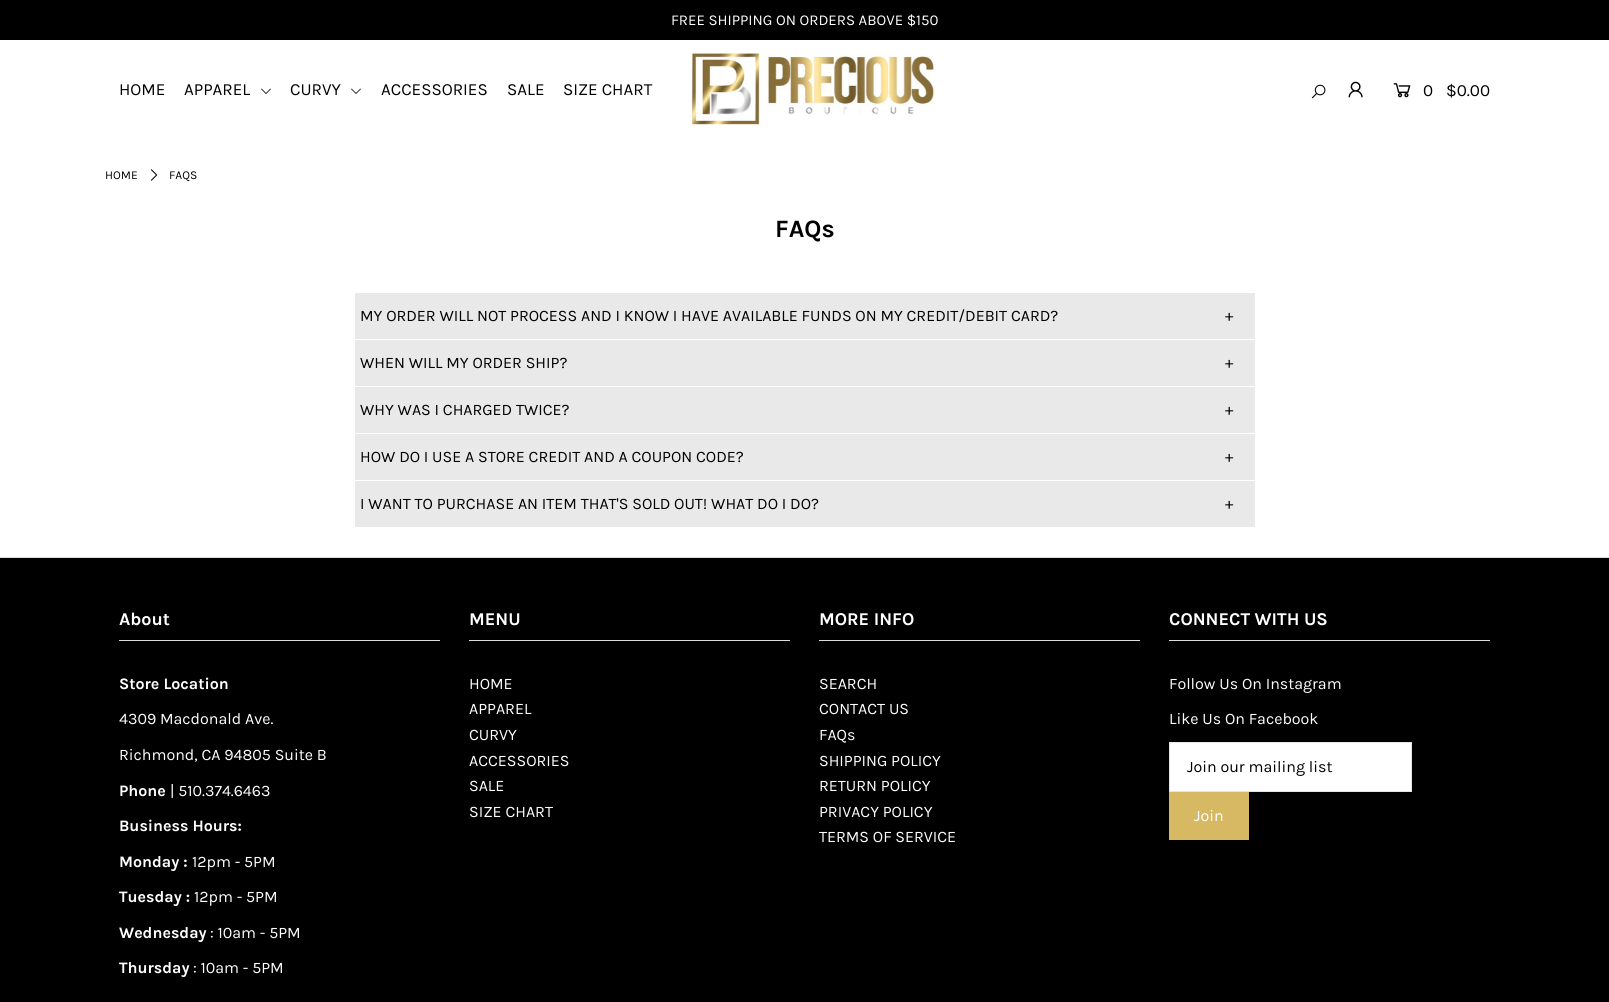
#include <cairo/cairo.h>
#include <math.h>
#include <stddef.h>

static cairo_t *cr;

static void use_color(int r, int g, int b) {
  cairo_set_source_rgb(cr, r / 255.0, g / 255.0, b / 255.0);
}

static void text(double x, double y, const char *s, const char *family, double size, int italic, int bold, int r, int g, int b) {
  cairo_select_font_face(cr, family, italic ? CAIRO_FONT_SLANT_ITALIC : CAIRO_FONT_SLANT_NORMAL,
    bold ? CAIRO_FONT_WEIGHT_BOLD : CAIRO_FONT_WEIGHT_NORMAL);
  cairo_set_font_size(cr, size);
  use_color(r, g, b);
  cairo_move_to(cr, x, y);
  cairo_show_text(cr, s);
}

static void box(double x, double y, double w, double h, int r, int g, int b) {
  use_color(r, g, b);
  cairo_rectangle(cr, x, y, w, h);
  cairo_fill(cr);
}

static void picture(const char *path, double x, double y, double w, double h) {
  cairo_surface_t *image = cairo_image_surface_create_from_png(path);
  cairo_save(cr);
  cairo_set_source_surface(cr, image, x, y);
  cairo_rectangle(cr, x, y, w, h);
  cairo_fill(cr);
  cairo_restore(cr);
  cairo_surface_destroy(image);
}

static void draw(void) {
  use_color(255, 255, 255);
  cairo_paint(cr);
  box(0, 0, 1609, 40, 0, 0, 0);
  picture("img_01.png", 261, 88, 10, 6);
  picture("img_01.png", 351, 88, 10, 6);
  picture("img_02.png", 690, 50, 245, 75);
  picture("img_03.png", 1311, 84, 15, 15);
  picture("img_04.png", 1348, 81, 15, 17);
  picture("img_05.png", 1393, 83, 18, 15);
  picture("img_06.png", 150, 169, 8, 12);
  box(355, 293, 900, 46, 233, 233, 233);
  box(355, 340, 900, 46, 233, 233, 233);
  box(355, 387, 900, 46, 233, 233, 233);
  box(355, 434, 900, 46, 233, 233, 233);
  box(355, 481, 900, 46, 233, 233, 233);
  box(0, 558, 1609, 444, 0, 0, 0);
  box(0, 557, 1609, 1, 221, 221, 221);
  box(119, 640, 321, 1, 221, 221, 221);
  box(469, 640, 321, 1, 221, 221, 221);
  box(819, 640, 321, 1, 221, 221, 221);
  box(1169, 640, 321, 1, 221, 221, 221);
  use_color(255, 255, 255);
  cairo_rectangle(cr, 1169.5, 742.5, 242, 49);
  cairo_fill_preserve(cr);
  use_color(229, 229, 229);
  cairo_set_line_width(cr, 1);
  cairo_stroke(cr);
  box(1169, 792, 80, 48, 215, 185, 100);
  text(671, 25, "FREE SHIPPING ON ORDERS ABOVE $150", "Karla", 15, 0, 0, 255, 255, 255);
  text(119, 95, "HOME", "Karla", 17, 0, 0, 0, 0, 0);
  text(184, 95, "APPAREL", "Karla", 17, 0, 0, 0, 0, 0);
  text(290, 95, "CURVY", "Karla", 17, 0, 0, 0, 0, 0);
  text(381, 95, "ACCESSORIES", "Karla", 17, 0, 0, 0, 0, 0);
  text(507, 95, "SALE", "Karla", 17, 0, 0, 0, 0, 0);
  text(563, 95, "SIZE CHART", "Karla", 17, 0, 0, 0, 0, 0);
  text(1423, 96, "0", "Karla", 17, 0, 0, 0, 0, 0);
  text(1446, 96, "$0.00", "Karla", 17, 0, 0, 0, 0, 0);
  text(105, 179, "HOME", "Karla", 12, 0, 0, 0, 0, 0);
  text(169, 179, "FAQS", "Karla", 12, 0, 0, 0, 0, 0);
  text(775, 237, "FAQs", "Karla", 25, 0, 1, 0, 0, 0);
  text(360, 321, "MY ORDER WILL NOT PROCESS AND I KNOW I HAVE AVAILABLE FUNDS ON MY CREDIT/DEBIT CARD?", "Karla", 16, 0, 0, 0, 0, 0);
  text(1225, 321, "+", "Karla", 16, 0, 0, 0, 0, 0);
  text(360, 368, "WHEN WILL MY ORDER SHIP?", "Karla", 16, 0, 0, 0, 0, 0);
  text(1225, 368, "+", "Karla", 16, 0, 0, 0, 0, 0);
  text(360, 415, "WHY WAS I CHARGED TWICE?", "Karla", 16, 0, 0, 0, 0, 0);
  text(1225, 415, "+", "Karla", 16, 0, 0, 0, 0, 0);
  text(360, 462, "HOW DO I USE A STORE CREDIT AND A COUPON CODE?", "Karla", 16, 0, 0, 0, 0, 0);
  text(1225, 462, "+", "Karla", 16, 0, 0, 0, 0, 0);
  text(360, 509, "I WANT TO PURCHASE AN ITEM THAT'S SOLD OUT! WHAT DO I DO?", "Karla", 16, 0, 0, 0, 0, 0);
  text(1225, 509, "+", "Karla", 16, 0, 0, 0, 0, 0);
  text(119, 625, "About", "Karla", 18, 0, 1, 255, 255, 255);
  text(119, 689, "Store Location", "Karla", 16, 0, 1, 255, 255, 255);
  text(119, 724, "4309 Macdonald Ave.", "Karla", 16, 0, 0, 255, 255, 255);
  text(119, 760, "Richmond, CA 94805 Suite B", "Karla", 16, 0, 0, 255, 255, 255);
  text(119, 796, "Phone", "Karla", 16, 0, 1, 255, 255, 255);
  text(170, 796, "| 510.374.6463", "Karla", 16, 0, 0, 255, 255, 255);
  text(119, 831, "Business Hours:", "Karla", 16, 0, 1, 255, 255, 255);
  text(119, 867, "Monday :", "Karla", 16, 0, 1, 255, 255, 255);
  text(192, 867, "12pm - 5PM", "Karla", 16, 0, 0, 255, 255, 255);
  text(119, 902, "Tuesday :", "Karla", 16, 0, 1, 255, 255, 255);
  text(194, 902, "12pm - 5PM", "Karla", 16, 0, 0, 255, 255, 255);
  text(119, 938, "Wednesday", "Karla", 16, 0, 1, 255, 255, 255);
  text(210, 938, ": 10am - 5PM", "Karla", 16, 0, 0, 255, 255, 255);
  text(119, 973, "Thursday", "Karla", 16, 0, 1, 255, 255, 255);
  text(193, 973, ": 10am - 5PM", "Karla", 16, 0, 0, 255, 255, 255);
  text(469, 625, "MENU", "Karla", 18, 0, 1, 255, 255, 255);
  text(469, 689, "HOME", "Karla", 16, 0, 0, 255, 255, 255);
  text(469, 714, "APPAREL", "Karla", 16, 0, 0, 255, 255, 255);
  text(469, 740, "CURVY", "Karla", 16, 0, 0, 255, 255, 255);
  text(469, 766, "ACCESSORIES", "Karla", 16, 0, 0, 255, 255, 255);
  text(469, 791, "SALE", "Karla", 16, 0, 0, 255, 255, 255);
  text(469, 817, "SIZE CHART", "Karla", 16, 0, 0, 255, 255, 255);
  text(819, 625, "MORE INFO", "Karla", 18, 0, 1, 255, 255, 255);
  text(819, 689, "SEARCH", "Karla", 16, 0, 0, 255, 255, 255);
  text(819, 714, "CONTACT US", "Karla", 16, 0, 0, 255, 255, 255);
  text(819, 740, "FAQs", "Karla", 16, 0, 0, 255, 255, 255);
  text(819, 766, "SHIPPING POLICY", "Karla", 16, 0, 0, 255, 255, 255);
  text(819, 791, "RETURN POLICY", "Karla", 16, 0, 0, 255, 255, 255);
  text(819, 817, "PRIVACY POLICY", "Karla", 16, 0, 0, 255, 255, 255);
  text(819, 842, "TERMS OF SERVICE", "Karla", 16, 0, 0, 255, 255, 255);
  text(1169, 625, "CONNECT WITH US", "Karla", 18, 0, 1, 255, 255, 255);
  text(1169, 689, "Follow Us On Instagram", "Karla", 16, 0, 0, 255, 255, 255);
  text(1169, 724, "Like Us On Facebook", "Karla", 16, 0, 0, 255, 255, 255);
  text(1187, 772, "Join our mailing list", "Karla", 16, 0, 0, 0, 0, 0);
  text(1194, 821, "Join", "Karla", 16, 0, 0, 255, 255, 255);
}

int main(void) {
  cairo_surface_t *surface = cairo_image_surface_create(CAIRO_FORMAT_RGB24, 1609, 1002);
  cr = cairo_create(surface);
  cairo_font_options_t *options = cairo_font_options_create();
  cairo_font_options_set_hint_metrics(options, CAIRO_HINT_METRICS_OFF);
  cairo_font_options_set_hint_style(options, CAIRO_HINT_STYLE_NONE);
  cairo_set_font_options(cr, options);
  cairo_set_miter_limit(cr, 4);
  draw();
  cairo_surface_write_to_png(surface, "out.png");
  cairo_font_options_destroy(options);
  cairo_destroy(cr);
  cairo_surface_destroy(surface);
  return 0;
}
